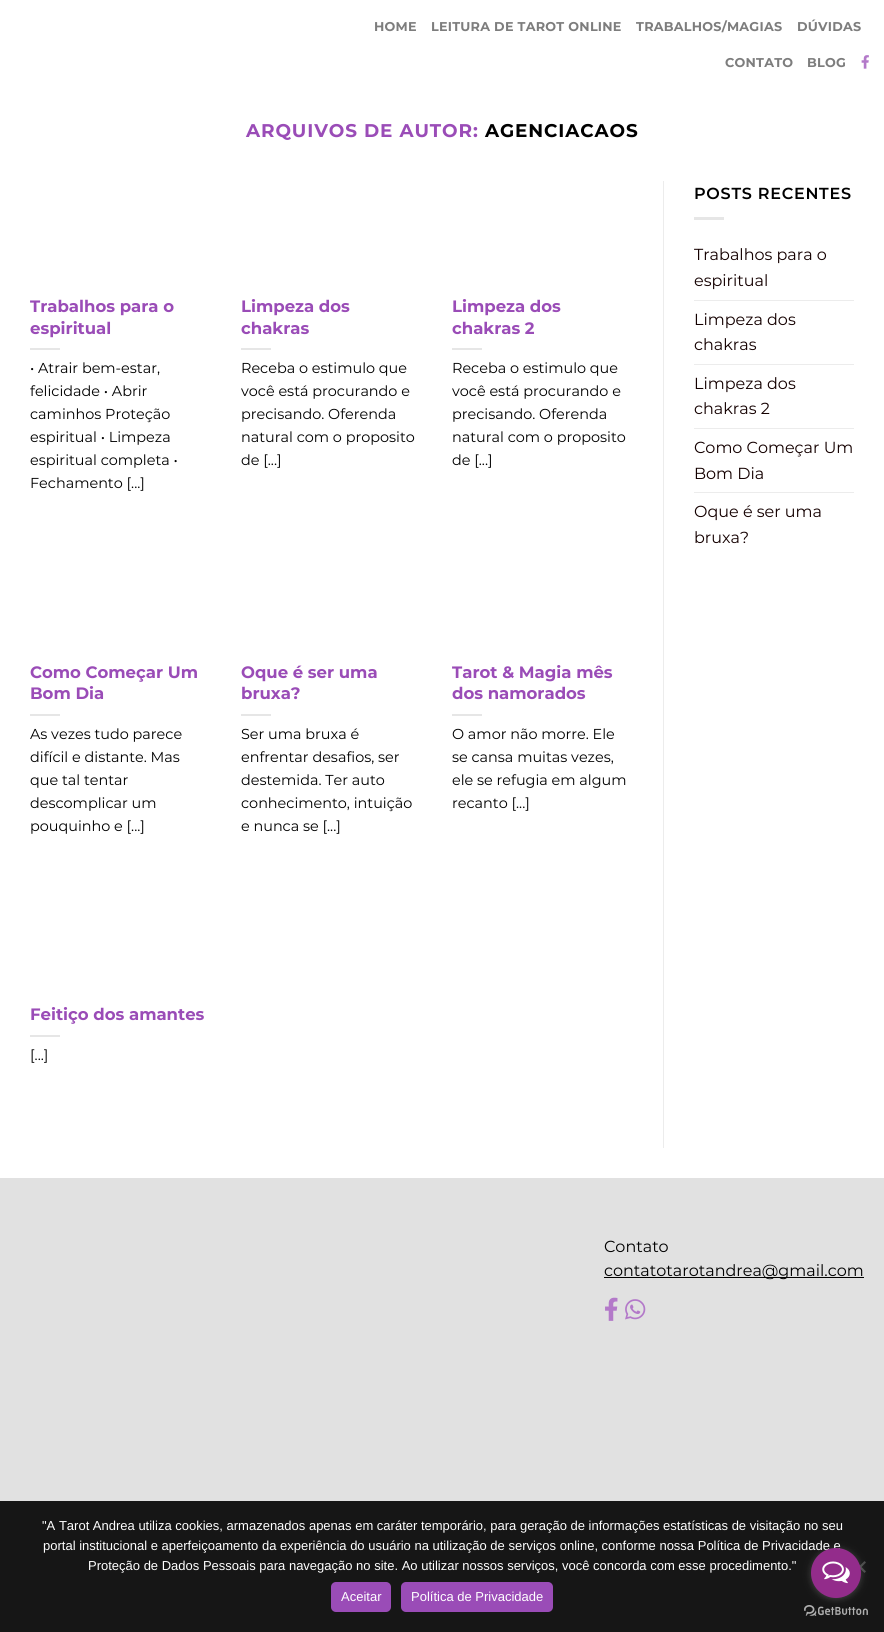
#include <cairo/cairo.h>
#include <math.h>
#include <stddef.h>

static cairo_t *cr;

static void use_color(int r, int g, int b) {
  cairo_set_source_rgb(cr, r / 255.0, g / 255.0, b / 255.0);
}

static void text(double x, double y, const char *s, const char *family, double size, int italic, int bold, int r, int g, int b) {
  cairo_select_font_face(cr, family, italic ? CAIRO_FONT_SLANT_ITALIC : CAIRO_FONT_SLANT_NORMAL,
    bold ? CAIRO_FONT_WEIGHT_BOLD : CAIRO_FONT_WEIGHT_NORMAL);
  cairo_set_font_size(cr, size);
  use_color(r, g, b);
  cairo_move_to(cr, x, y);
  cairo_show_text(cr, s);
}

static void spaced_text(double x, double y, const char *s, double letter, double word) {
  cairo_move_to(cr, x, y);
  while (*s) {
    char ch[5] = {0};
    int n = 0;
    do ch[n++] = *s++; while ((*s & 0xC0) == 0x80);
    cairo_show_text(cr, ch);
    cairo_rel_move_to(cr, letter + word * (*ch == ' '), 0);
  }
}

static void box(double x, double y, double w, double h, int r, int g, int b) {
  use_color(r, g, b);
  cairo_rectangle(cr, x, y, w, h);
  cairo_fill(cr);
}

static void round_rect(double x, double y, double w, double h, double r) {
  cairo_new_sub_path(cr);
  cairo_arc(cr, x + w - r, y + h - r, r, 0, M_PI / 2);
  cairo_arc(cr, x + r, y + h - r, r, M_PI / 2, M_PI);
  cairo_arc(cr, x + r, y + r, r, M_PI, 1.5 * M_PI);
  cairo_arc(cr, x + w - r, y + r, r, 1.5 * M_PI, 2 * M_PI);
  cairo_close_path(cr);
}

static void shadow(double x, double y, double w, double h, double r, double blur, double alpha) {
  cairo_push_group_with_content(cr, CAIRO_CONTENT_ALPHA);
  cairo_set_operator(cr, CAIRO_OPERATOR_SOURCE);
  for (int i = 15; i >= -15 && fmin(w, h) + blur * i / 3 > 0; i -= 2) {
    double e = blur * i / 6;
    cairo_set_source_rgba(cr, 0, 0, 0, alpha * erfc((i - 1) / 8.5) / 2);
    round_rect(x - e, y - e, w + 2 * e, h + 2 * e, fmax(0, fmin(r + e + blur * .6, fmin(w, h) / 2 + e)));
    cairo_fill(cr);
  }
  cairo_pattern_t *soft = cairo_pop_group(cr);
  cairo_mask(cr, soft);
  cairo_pattern_destroy(soft);
}

static void picture(const char *path, double x, double y, double w, double h) {
  cairo_surface_t *image = cairo_image_surface_create_from_png(path);
  cairo_save(cr);
  cairo_set_source_surface(cr, image, x, y);
  cairo_rectangle(cr, x, y, w, h);
  cairo_fill(cr);
  cairo_restore(cr);
  cairo_surface_destroy(image);
}

static void draw(void) {
  use_color(225, 225, 225);
  cairo_paint(cr);
  box(0, 1501, 884, 131, 22, 22, 22);
  box(0, 0, 884, 1178, 255, 255, 255);
  picture("img_01.png", 861, 55, 8, 14);
  box(30, 348, 30, 2, 230, 230, 230);
  box(241, 348, 30, 2, 230, 230, 230);
  box(452, 348, 30, 2, 230, 230, 230);
  box(30, 714, 30, 2, 230, 230, 230);
  box(241, 714, 30, 2, 230, 230, 230);
  box(452, 714, 30, 2, 230, 230, 230);
  box(30, 1035, 30, 2, 230, 230, 230);
  box(663, 181, 1, 967, 236, 236, 236);
  box(694, 217, 30, 3, 230, 230, 230);
  box(694, 300, 160, 1, 236, 236, 236);
  box(694, 364, 160, 1, 236, 236, 236);
  box(694, 428, 160, 1, 236, 236, 236);
  box(694, 492, 160, 1, 236, 236, 236);
  box(604, 1277, 260, 1, 0, 0, 0);
  picture("img_02.png", 605, 1297, 13, 24);
  picture("img_03.png", 625, 1299, 21, 21);
  use_color(75, 75, 75);
  cairo_new_path(cr);
  cairo_move_to(cr, 864.5, 1561);
  cairo_line_to(cr, 866, 1562.5);
  cairo_line_to(cr, 855.5, 1573);
  cairo_line_to(cr, 854, 1571.5);
  cairo_close_path(cr);
  cairo_fill(cr);
  cairo_new_path(cr);
  cairo_move_to(cr, 854, 1562.5);
  cairo_line_to(cr, 855.5, 1561);
  cairo_line_to(cr, 866, 1571.5);
  cairo_line_to(cr, 864.5, 1573);
  cairo_close_path(cr);
  cairo_fill(cr);
  use_color(154, 76, 183);
  round_rect(331, 1582, 60, 30, 5);
  cairo_fill(cr);
  round_rect(401, 1582, 152, 30, 5);
  cairo_fill(cr);
  picture("img_05.png", 804, 1605, 64, 11);
  use_color(136, 136, 136);
  shadow(811, 1549, 50, 50, 25, 3.5, 0.4);
  cairo_select_font_face(cr, "Montserrat", CAIRO_FONT_SLANT_NORMAL, CAIRO_FONT_WEIGHT_BOLD);
  cairo_set_font_size(cr, 12.75);
  use_color(125, 125, 125);
  spaced_text(374, 31, "HOME", 0.25, 0);
  spaced_text(431, 31, "LEITURA DE TAROT ONLINE", 0.25, 0);
  spaced_text(636, 31, "TRABALHOS/MAGIAS", 0.25, 0);
  spaced_text(797, 31, "DÚVIDAS", 0.25, 0);
  spaced_text(725, 67, "CONTATO", 0.25, 0);
  spaced_text(807, 67, "BLOG", 0.25, 0);
  cairo_set_font_size(cr, 18.4);
  use_color(154, 76, 183);
  spaced_text(246, 137, "ARQUIVOS DE AUTOR:", 0.9, 0);
  use_color(0, 0, 0);
  spaced_text(485, 137, "AGENCIACAOS", 0.9, 0);
  text(30, 312, "Trabalhos para o", "Montserrat", 16.5, 0, 1, 154, 76, 183);
  text(30, 334, "espiritual", "Montserrat", 16.5, 0, 1, 154, 76, 183);
  text(30, 373, "• Atrair bem-estar,", "Montserrat", 14.4, 0, 0, 0, 0, 0);
  text(30, 396, "felicidade • Abrir", "Montserrat", 14.4, 0, 0, 0, 0, 0);
  text(30, 419, "caminhos Proteção", "Montserrat", 14.4, 0, 0, 0, 0, 0);
  text(30, 442, "espiritual • Limpeza", "Montserrat", 14.4, 0, 0, 0, 0, 0);
  text(30, 465, "espiritual completa •", "Montserrat", 14.4, 0, 0, 0, 0, 0);
  text(30, 488, "Fechamento [...]", "Montserrat", 14.4, 0, 0, 0, 0, 0);
  text(241, 312, "Limpeza dos", "Montserrat", 16.5, 0, 1, 154, 76, 183);
  text(241, 334, "chakras", "Montserrat", 16.5, 0, 1, 154, 76, 183);
  text(241, 373, "Receba o estimulo que", "Montserrat", 14.4, 0, 0, 0, 0, 0);
  text(241, 396, "você está procurando e", "Montserrat", 14.4, 0, 0, 0, 0, 0);
  text(241, 419, "precisando. Oferenda", "Montserrat", 14.4, 0, 0, 0, 0, 0);
  text(241, 442, "natural com o proposito", "Montserrat", 14.4, 0, 0, 0, 0, 0);
  text(241, 465, "de [...]", "Montserrat", 14.4, 0, 0, 0, 0, 0);
  text(452, 312, "Limpeza dos", "Montserrat", 16.5, 0, 1, 154, 76, 183);
  text(452, 334, "chakras 2", "Montserrat", 16.5, 0, 1, 154, 76, 183);
  text(452, 373, "Receba o estimulo que", "Montserrat", 14.4, 0, 0, 0, 0, 0);
  text(452, 396, "você está procurando e", "Montserrat", 14.4, 0, 0, 0, 0, 0);
  text(452, 419, "precisando. Oferenda", "Montserrat", 14.4, 0, 0, 0, 0, 0);
  text(452, 442, "natural com o proposito", "Montserrat", 14.4, 0, 0, 0, 0, 0);
  text(452, 465, "de [...]", "Montserrat", 14.4, 0, 0, 0, 0, 0);
  text(30, 678, "Como Começar Um", "Montserrat", 16.5, 0, 1, 154, 76, 183);
  text(30, 699, "Bom Dia", "Montserrat", 16.5, 0, 1, 154, 76, 183);
  text(30, 739, "As vezes tudo parece", "Montserrat", 14.4, 0, 0, 0, 0, 0);
  text(30, 762, "difícil e distante. Mas", "Montserrat", 14.4, 0, 0, 0, 0, 0);
  text(30, 785, "que tal tentar", "Montserrat", 14.4, 0, 0, 0, 0, 0);
  text(30, 808, "descomplicar um", "Montserrat", 14.4, 0, 0, 0, 0, 0);
  text(30, 831, "pouquinho e [...]", "Montserrat", 14.4, 0, 0, 0, 0, 0);
  text(241, 678, "Oque é ser uma", "Montserrat", 16.5, 0, 1, 154, 76, 183);
  text(241, 699, "bruxa?", "Montserrat", 16.5, 0, 1, 154, 76, 183);
  text(241, 739, "Ser uma bruxa é", "Montserrat", 14.4, 0, 0, 0, 0, 0);
  text(241, 762, "enfrentar desafios, ser", "Montserrat", 14.4, 0, 0, 0, 0, 0);
  text(241, 785, "destemida. Ter auto", "Montserrat", 14.4, 0, 0, 0, 0, 0);
  text(241, 808, "conhecimento, intuição", "Montserrat", 14.4, 0, 0, 0, 0, 0);
  text(241, 831, "e nunca se [...]", "Montserrat", 14.4, 0, 0, 0, 0, 0);
  text(452, 678, "Tarot & Magia mês", "Montserrat", 16.5, 0, 1, 154, 76, 183);
  text(452, 699, "dos namorados", "Montserrat", 16.5, 0, 1, 154, 76, 183);
  text(452, 739, "O amor não morre. Ele", "Montserrat", 14.4, 0, 0, 0, 0, 0);
  text(452, 762, "se cansa muitas vezes,", "Montserrat", 14.4, 0, 0, 0, 0, 0);
  text(452, 785, "ele se refugia em algum", "Montserrat", 14.4, 0, 0, 0, 0, 0);
  text(452, 808, "recanto [...]", "Montserrat", 14.4, 0, 0, 0, 0, 0);
  text(30, 1020, "Feitiço dos amantes", "Montserrat", 16.5, 0, 1, 154, 76, 183);
  text(30, 1060, "[...]", "Montserrat", 14.4, 0, 0, 0, 0, 0);
  cairo_select_font_face(cr, "Montserrat SemiBold", CAIRO_FONT_SLANT_NORMAL, CAIRO_FONT_WEIGHT_NORMAL);
  cairo_set_font_size(cr, 16);
  spaced_text(694, 199, "POSTS RECENTES", 0.75, 0);
  text(694, 260, "Trabalhos para o", "Montserrat", 16, 0, 0, 20, 0, 0);
  text(694, 286, "espiritual", "Montserrat", 16, 0, 0, 20, 0, 0);
  text(694, 325, "Limpeza dos", "Montserrat", 16, 0, 0, 20, 0, 0);
  text(694, 350, "chakras", "Montserrat", 16, 0, 0, 20, 0, 0);
  text(694, 389, "Limpeza dos", "Montserrat", 16, 0, 0, 20, 0, 0);
  text(694, 414, "chakras 2", "Montserrat", 16, 0, 0, 20, 0, 0);
  text(694, 453, "Como Começar Um", "Montserrat", 16, 0, 0, 20, 0, 0);
  text(694, 479, "Bom Dia", "Montserrat", 16, 0, 0, 20, 0, 0);
  text(694, 517, "Oque é ser uma", "Montserrat", 16, 0, 0, 20, 0, 0);
  text(694, 543, "bruxa?", "Montserrat", 16, 0, 0, 20, 0, 0);
  text(604, 1252, "Contato", "Montserrat", 16, 0, 0, 0, 0, 0);
  text(604, 1276, "contatotarotandrea@gmail.com", "Montserrat", 16, 0, 0, 0, 0, 0);
  text(42, 1530, "\"A Tarot Andrea utiliza cookies, armazenados apenas em caráter temporário, para geração de informações estatísticas de visitação no seu", "Liberation Sans", 13, 0, 0, 255, 255, 255);
  text(43, 1550, "portal institucional e aperfeiçoamento da experiência do usuário na utilização de serviços online, conforme nossa Política de Privacidade e", "Liberation Sans", 13, 0, 0, 255, 255, 255);
  text(88, 1570, "Proteção de Dados Pessoais para navegação no site. Ao utilizar nossos serviços, você concorda com esse procedimento.\"", "Liberation Sans", 13, 0, 0, 255, 255, 255);
  text(341, 1601, "Aceitar", "Liberation Sans", 13, 0, 0, 255, 255, 255);
  text(411, 1601, "Política de Privacidade", "Liberation Sans", 13, 0, 0, 255, 255, 255);
  use_color(147, 44, 139);
  cairo_new_path(cr);
  cairo_arc(cr, 836, 1573, 25, 0, 2 * M_PI);
  cairo_fill(cr);
  picture("img_04.png", 822, 1561, 28, 23);
}

int main(void) {
  cairo_surface_t *surface = cairo_image_surface_create(CAIRO_FORMAT_RGB24, 884, 1632);
  cr = cairo_create(surface);
  cairo_font_options_t *options = cairo_font_options_create();
  cairo_font_options_set_hint_metrics(options, CAIRO_HINT_METRICS_OFF);
  cairo_font_options_set_hint_style(options, CAIRO_HINT_STYLE_NONE);
  cairo_set_font_options(cr, options);
  cairo_set_miter_limit(cr, 4);
  draw();
  cairo_surface_write_to_png(surface, "out.png");
  cairo_font_options_destroy(options);
  cairo_destroy(cr);
  cairo_surface_destroy(surface);
  return 0;
}
